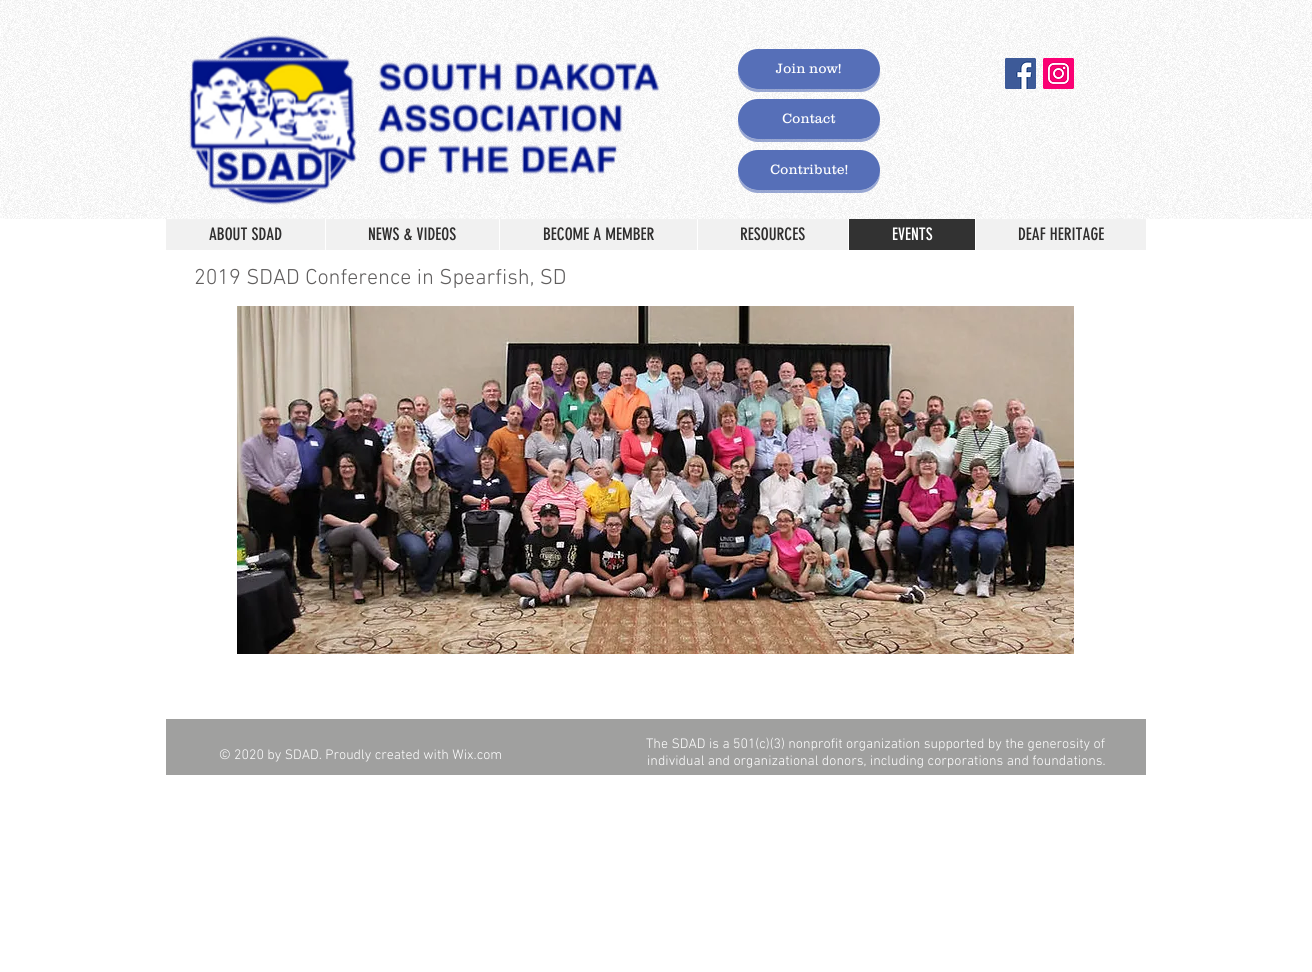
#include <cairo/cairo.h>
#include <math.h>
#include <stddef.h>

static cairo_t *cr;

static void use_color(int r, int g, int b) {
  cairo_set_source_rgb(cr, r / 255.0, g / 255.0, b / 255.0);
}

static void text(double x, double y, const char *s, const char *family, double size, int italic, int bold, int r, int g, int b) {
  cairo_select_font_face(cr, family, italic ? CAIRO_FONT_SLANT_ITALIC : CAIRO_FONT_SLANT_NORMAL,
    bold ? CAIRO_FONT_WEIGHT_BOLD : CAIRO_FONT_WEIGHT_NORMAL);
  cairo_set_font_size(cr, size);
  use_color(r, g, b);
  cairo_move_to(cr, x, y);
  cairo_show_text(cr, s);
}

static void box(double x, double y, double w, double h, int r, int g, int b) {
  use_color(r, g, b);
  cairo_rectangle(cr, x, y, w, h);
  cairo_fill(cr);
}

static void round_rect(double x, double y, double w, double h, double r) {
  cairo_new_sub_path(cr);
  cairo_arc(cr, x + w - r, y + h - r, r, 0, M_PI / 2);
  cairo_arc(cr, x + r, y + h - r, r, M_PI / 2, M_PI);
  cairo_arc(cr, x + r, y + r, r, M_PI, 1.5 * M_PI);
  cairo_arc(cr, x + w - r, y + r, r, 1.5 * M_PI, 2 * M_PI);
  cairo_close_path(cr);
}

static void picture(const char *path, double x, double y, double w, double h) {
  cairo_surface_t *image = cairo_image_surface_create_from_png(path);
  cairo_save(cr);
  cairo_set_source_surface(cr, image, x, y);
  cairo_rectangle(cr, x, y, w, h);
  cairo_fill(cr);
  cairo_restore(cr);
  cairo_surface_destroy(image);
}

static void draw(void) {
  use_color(255, 255, 255);
  cairo_paint(cr);
  picture("img_01.png", 0, 0, 1312, 219);
  picture("img_02.png", 189, 35, 471, 170);
  cairo_set_source_rgba(cr, 0.337, 0.435, 0.722, 0.6);
  cairo_new_path(cr);
  cairo_move_to(cr, 738, 70);
  cairo_line_to(cr, 738, 72);
  cairo_curve_to(cr, 738, 83, 747, 92, 758, 92);
  cairo_line_to(cr, 860, 92);
  cairo_curve_to(cr, 871, 92, 880, 83, 880, 72);
  cairo_line_to(cr, 880, 70);
  cairo_curve_to(cr, 879, 81, 871, 89, 860, 89);
  cairo_line_to(cr, 758, 89);
  cairo_curve_to(cr, 747, 89, 739, 81, 738, 70);
  cairo_close_path(cr);
  cairo_fill(cr);
  use_color(86, 111, 184);
  round_rect(738, 49, 142, 40, 20);
  cairo_fill(cr);
  picture("img_03.png", 1005, 58, 31, 31);
  picture("img_04.png", 1043, 58, 31, 31);
  cairo_set_source_rgba(cr, 0.337, 0.435, 0.722, 0.6);
  cairo_new_path(cr);
  cairo_move_to(cr, 738, 120);
  cairo_line_to(cr, 738, 122);
  cairo_curve_to(cr, 738, 133, 747, 142, 758, 142);
  cairo_line_to(cr, 860, 142);
  cairo_curve_to(cr, 871, 142, 880, 133, 880, 122);
  cairo_line_to(cr, 880, 120);
  cairo_curve_to(cr, 879, 131, 871, 139, 860, 139);
  cairo_line_to(cr, 758, 139);
  cairo_curve_to(cr, 747, 139, 739, 131, 738, 120);
  cairo_close_path(cr);
  cairo_fill(cr);
  use_color(86, 111, 184);
  round_rect(738, 99, 142, 40, 20);
  cairo_fill(cr);
  cairo_set_source_rgba(cr, 0.337, 0.435, 0.722, 0.6);
  cairo_new_path(cr);
  cairo_move_to(cr, 738, 171);
  cairo_line_to(cr, 738, 173);
  cairo_curve_to(cr, 738, 184, 747, 193, 758, 193);
  cairo_line_to(cr, 860, 193);
  cairo_curve_to(cr, 871, 193, 880, 184, 880, 173);
  cairo_line_to(cr, 880, 171);
  cairo_curve_to(cr, 879, 182, 871, 190, 860, 190);
  cairo_line_to(cr, 758, 190);
  cairo_curve_to(cr, 747, 190, 739, 182, 738, 171);
  cairo_close_path(cr);
  cairo_fill(cr);
  use_color(86, 111, 184);
  round_rect(738, 150, 142, 40, 20);
  cairo_fill(cr);
  box(166, 219, 980, 31, 241, 241, 241);
  box(325, 219, 1, 31, 255, 255, 255);
  box(499, 219, 1, 31, 255, 255, 255);
  box(697, 219, 1, 31, 255, 255, 255);
  box(849, 219, 126, 31, 50, 50, 50);
  box(848, 219, 1, 31, 255, 255, 255);
  box(975, 219, 1, 31, 255, 255, 255);
  picture("img_05.png", 237, 306, 837, 348);
  box(166, 719, 980, 56, 160, 160, 159);
  text(776, 73, "Join now!", "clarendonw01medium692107 Light", 14, 0, 0, 255, 255, 255);
  text(782, 123, "Contact", "clarendonw01medium692107 Light", 14, 0, 0, 255, 255, 255);
  text(770, 174, "Contribute!", "clarendonw01medium692107 Light", 14, 0, 0, 255, 255, 255);
  text(209, 240, "ABOUT SDAD", "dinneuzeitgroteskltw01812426", 17, 0, 0, 47, 46, 46);
  text(368, 240, "NEWS & VIDEOS", "dinneuzeitgroteskltw01812426", 17, 0, 0, 47, 46, 46);
  text(543, 240, "BECOME A MEMBER", "dinneuzeitgroteskltw01812426", 17, 0, 0, 47, 46, 46);
  text(740, 240, "RESOURCES", "dinneuzeitgroteskltw01812426", 17, 0, 0, 47, 46, 46);
  text(892, 240, "EVENTS", "dinneuzeitgroteskltw01812426", 17, 0, 0, 255, 255, 255);
  text(1018, 240, "DEAF HERITAGE", "dinneuzeitgroteskltw01812426", 17, 0, 0, 47, 46, 46);
  text(194, 284, "2019 SDAD Conference in Spearfish, SD", "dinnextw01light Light", 22, 0, 0, 96, 94, 94);
  text(219, 759, "© 2020 by SDAD. Proudly created with Wix.com", "dinnextw01light Light", 14, 0, 0, 255, 255, 255);
  text(646, 748, "The SDAD is a 501(c)(3) nonprofit organization supported by the generosity of", "dinnextw01light Light", 14, 0, 0, 255, 255, 255);
  text(647, 765, "individual and organizational donors, including corporations and foundations.", "dinnextw01light Light", 14, 0, 0, 255, 255, 255);
}

int main(void) {
  cairo_surface_t *surface = cairo_image_surface_create(CAIRO_FORMAT_RGB24, 1312, 972);
  cr = cairo_create(surface);
  cairo_font_options_t *options = cairo_font_options_create();
  cairo_font_options_set_hint_metrics(options, CAIRO_HINT_METRICS_OFF);
  cairo_font_options_set_hint_style(options, CAIRO_HINT_STYLE_NONE);
  cairo_set_font_options(cr, options);
  cairo_set_miter_limit(cr, 4);
  draw();
  cairo_surface_write_to_png(surface, "out.png");
  cairo_font_options_destroy(options);
  cairo_destroy(cr);
  cairo_surface_destroy(surface);
  return 0;
}
